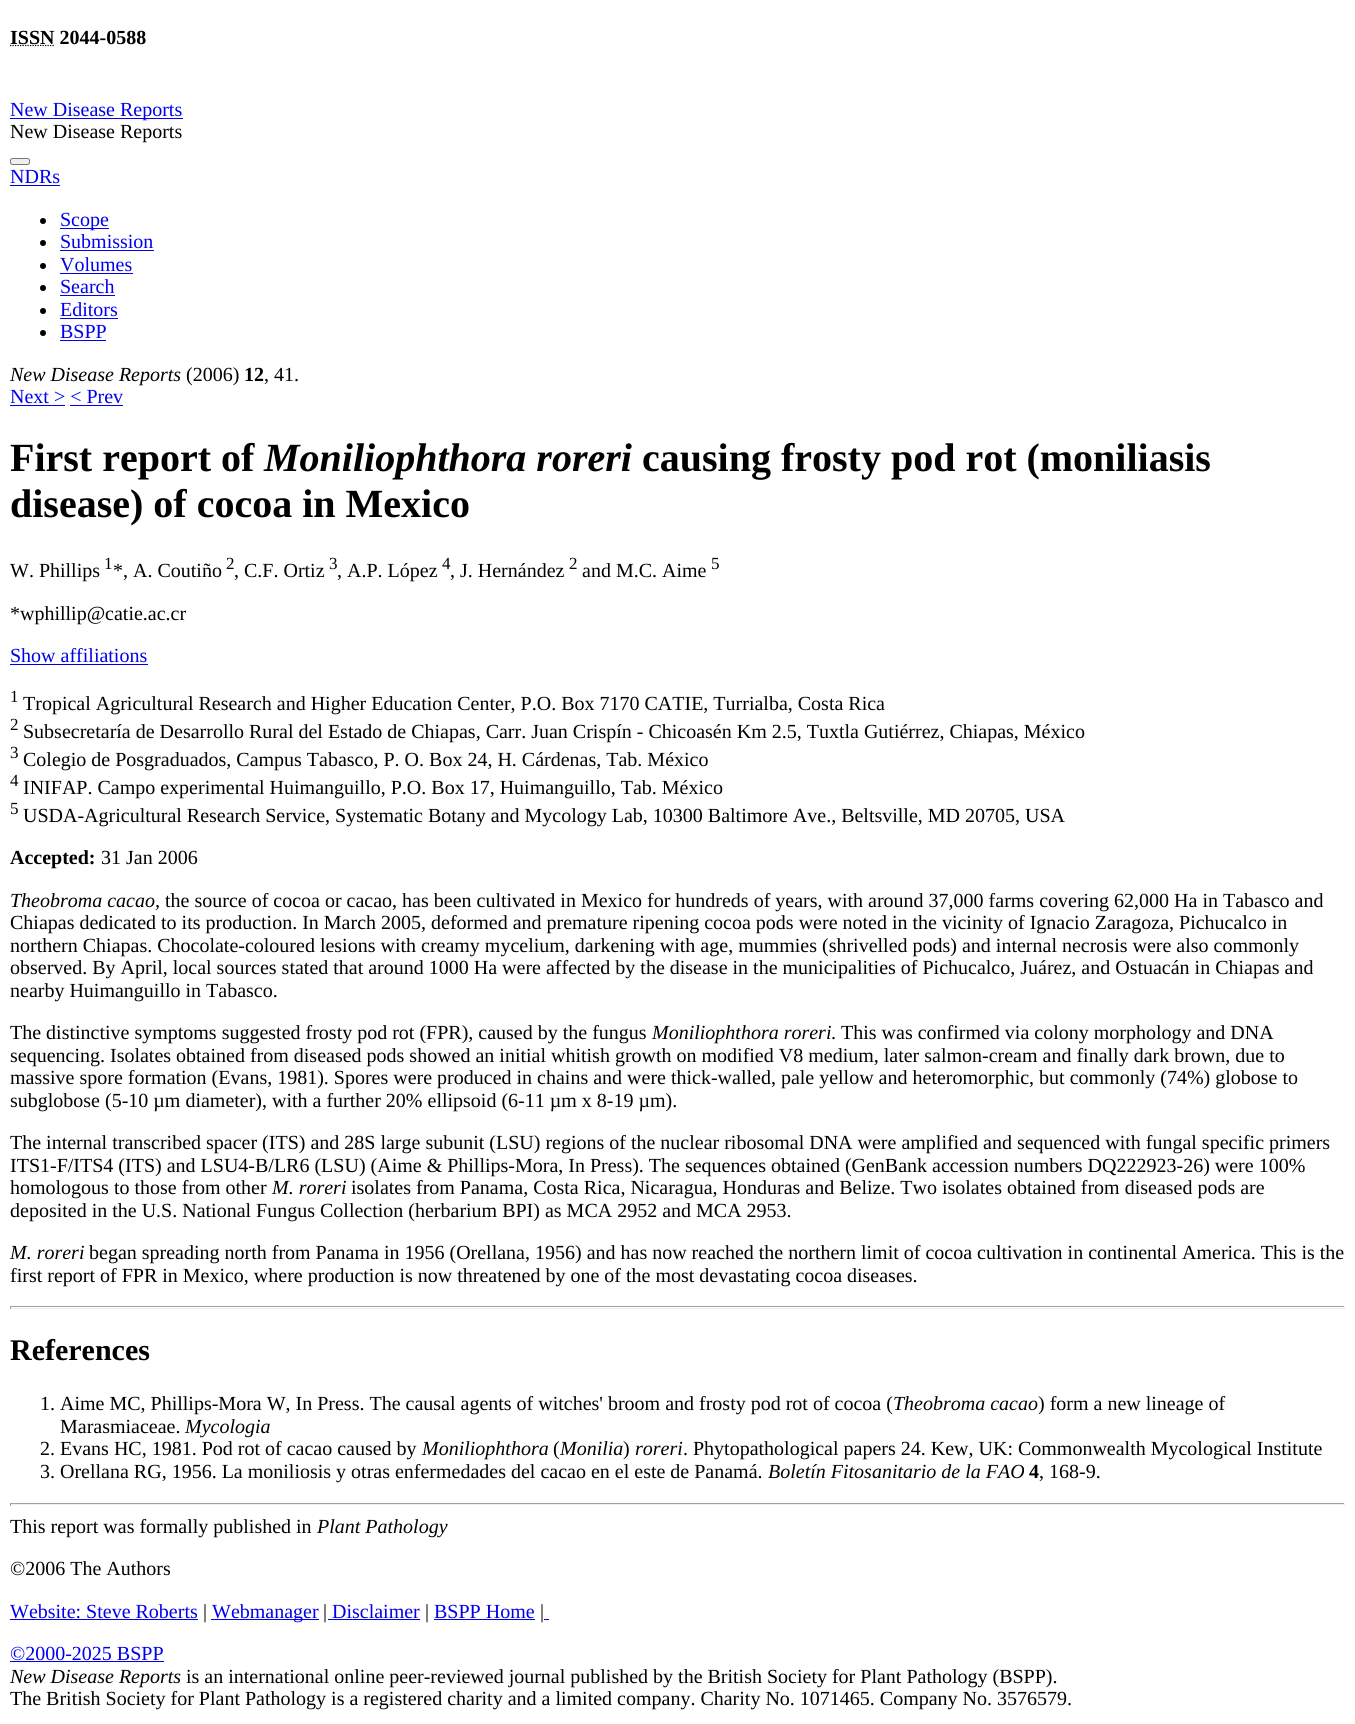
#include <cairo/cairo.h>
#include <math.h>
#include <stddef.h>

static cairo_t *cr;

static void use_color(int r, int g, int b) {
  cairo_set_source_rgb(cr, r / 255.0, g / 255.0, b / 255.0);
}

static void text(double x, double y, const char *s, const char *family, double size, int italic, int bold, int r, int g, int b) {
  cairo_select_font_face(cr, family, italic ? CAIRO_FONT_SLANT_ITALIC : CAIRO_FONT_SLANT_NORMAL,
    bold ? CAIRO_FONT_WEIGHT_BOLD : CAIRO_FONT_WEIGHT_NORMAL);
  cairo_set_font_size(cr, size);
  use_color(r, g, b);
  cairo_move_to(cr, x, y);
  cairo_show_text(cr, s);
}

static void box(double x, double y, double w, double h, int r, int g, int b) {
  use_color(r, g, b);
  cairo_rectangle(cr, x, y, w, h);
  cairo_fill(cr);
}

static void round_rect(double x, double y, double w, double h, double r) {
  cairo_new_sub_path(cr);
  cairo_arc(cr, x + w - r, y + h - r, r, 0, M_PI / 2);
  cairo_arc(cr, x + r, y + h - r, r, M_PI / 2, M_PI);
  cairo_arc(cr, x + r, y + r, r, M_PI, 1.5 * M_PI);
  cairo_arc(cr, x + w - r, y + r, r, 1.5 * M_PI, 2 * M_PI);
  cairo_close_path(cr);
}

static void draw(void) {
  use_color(255, 255, 255);
  cairo_paint(cr);
  cairo_new_path(cr);
  cairo_move_to(cr, 10, 45.5);
  cairo_line_to(cr, 54.5, 45.5);
  use_color(0, 0, 0);
  cairo_set_line_width(cr, 1.2);
  cairo_set_dash(cr, (double[]){1.25, 1.25}, 2, 0);
  cairo_stroke(cr);
  box(10, 118, 173, 1, 0, 0, 238);
  use_color(239, 239, 239);
  round_rect(10.5, 158.5, 19, 6, 2);
  cairo_fill_preserve(cr);
  use_color(118, 118, 118);
  cairo_set_line_width(cr, 1);
  cairo_set_dash(cr, NULL, 0, 0);
  cairo_stroke(cr);
  box(10, 185, 50, 1, 0, 0, 238);
  use_color(0, 0, 0);
  cairo_arc(cr, 43, 221, 3, 0, 2 * M_PI);
  cairo_fill(cr);
  box(60, 228, 49, 1, 0, 0, 238);
  use_color(0, 0, 0);
  cairo_arc(cr, 43, 243, 3, 0, 2 * M_PI);
  cairo_fill(cr);
  box(60, 250, 94, 1, 0, 0, 238);
  use_color(0, 0, 0);
  cairo_arc(cr, 43, 266, 3, 0, 2 * M_PI);
  cairo_fill(cr);
  box(60, 273, 73, 1, 0, 0, 238);
  use_color(0, 0, 0);
  cairo_arc(cr, 43, 288, 3, 0, 2 * M_PI);
  cairo_fill(cr);
  box(60, 295, 55, 1, 0, 0, 238);
  use_color(0, 0, 0);
  cairo_arc(cr, 43, 311, 3, 0, 2 * M_PI);
  cairo_fill(cr);
  box(60, 318, 58, 1, 0, 0, 238);
  use_color(0, 0, 0);
  cairo_arc(cr, 43, 333, 3, 0, 2 * M_PI);
  cairo_fill(cr);
  box(60, 340, 46, 1, 0, 0, 238);
  box(10, 405, 55, 1, 0, 0, 238);
  box(70, 405, 53, 1, 0, 0, 238);
  box(10, 664, 138, 1, 0, 0, 238);
  box(10, 1306, 1335, 1, 159, 159, 159);
  box(1344, 1306, 1, 3, 238, 238, 238);
  box(10, 1308, 1335, 1, 238, 238, 238);
  box(10, 1306, 1, 3, 159, 159, 159);
  box(10, 1503, 1335, 1, 159, 159, 159);
  box(1344, 1503, 1, 3, 238, 238, 238);
  box(10, 1504, 1335, 1, 238, 238, 238);
  box(10, 1503, 1, 3, 159, 159, 159);
  box(10, 1619, 188, 1, 0, 0, 238);
  box(211, 1619, 108, 1, 0, 0, 238);
  box(328, 1619, 92, 1, 0, 0, 238);
  box(434, 1619, 101, 1, 0, 0, 238);
  box(544, 1619, 5, 1, 0, 0, 238);
  box(10, 1661, 154, 1, 0, 0, 238);
  text(10, 44, "ISSN 2044-0588", "Liberation Serif", 20, 0, 1, 0, 0, 0);
  text(10, 116, "New Disease Reports", "Liberation Serif", 20, 0, 0, 0, 0, 238);
  text(10, 138, "New Disease Reports", "Liberation Serif", 20, 0, 0, 0, 0, 0);
  text(10, 183, "NDRs", "Liberation Serif", 20, 0, 0, 0, 0, 238);
  text(60, 226, "Scope", "Liberation Serif", 20, 0, 0, 0, 0, 238);
  text(60, 248, "Submission", "Liberation Serif", 20, 0, 0, 0, 0, 238);
  text(60, 271, "Volumes", "Liberation Serif", 20, 0, 0, 0, 0, 238);
  text(60, 293, "Search", "Liberation Serif", 20, 0, 0, 0, 0, 238);
  text(60, 316, "Editors", "Liberation Serif", 20, 0, 0, 0, 0, 238);
  text(60, 338, "BSPP", "Liberation Serif", 20, 0, 0, 0, 0, 238);
  text(10, 381, "New Disease Reports", "Liberation Serif", 20, 1, 0, 0, 0, 0);
  text(186, 381, "(2006)", "Liberation Serif", 20, 0, 0, 0, 0, 0);
  text(244, 381, "12", "Liberation Serif", 20, 0, 1, 0, 0, 0);
  text(264, 381, ", 41.", "Liberation Serif", 20, 0, 0, 0, 0, 0);
  text(10, 403, "Next > < Prev", "Liberation Serif", 20, 0, 0, 0, 0, 238);
  text(10, 471, "First report of", "Liberation Serif", 40, 0, 1, 0, 0, 0);
  text(264, 471, "Moniliophthora roreri", "Liberation Serif", 40, 1, 1, 0, 0, 0);
  text(642, 471, "causing frosty pod rot (moniliasis", "Liberation Serif", 40, 0, 1, 0, 0, 0);
  text(10, 517, "disease) of cocoa in Mexico", "Liberation Serif", 40, 0, 1, 0, 0, 0);
  text(10, 577, "W. Phillips", "Liberation Serif", 20, 0, 0, 0, 0, 0);
  text(104, 569, "1", "Liberation Serif", 17, 0, 0, 0, 0, 0);
  text(113, 577, "*, A. Coutiño", "Liberation Serif", 20, 0, 0, 0, 0, 0);
  text(226, 569, "2", "Liberation Serif", 17, 0, 0, 0, 0, 0);
  text(234, 577, ", C.F. Ortiz", "Liberation Serif", 20, 0, 0, 0, 0, 0);
  text(329, 569, "3", "Liberation Serif", 17, 0, 0, 0, 0, 0);
  text(337, 577, ", A.P. López", "Liberation Serif", 20, 0, 0, 0, 0, 0);
  text(442, 569, "4", "Liberation Serif", 17, 0, 0, 0, 0, 0);
  text(450, 577, ", J. Hernández", "Liberation Serif", 20, 0, 0, 0, 0, 0);
  text(569, 569, "2", "Liberation Serif", 17, 0, 0, 0, 0, 0);
  text(582, 577, "and M.C. Aime", "Liberation Serif", 20, 0, 0, 0, 0, 0);
  text(711, 569, "5", "Liberation Serif", 17, 0, 0, 0, 0, 0);
  text(10, 620, "*wphillip@catie.ac.cr", "Liberation Serif", 20, 0, 0, 0, 0, 0);
  text(10, 662, "Show affiliations", "Liberation Serif", 20, 0, 0, 0, 0, 238);
  text(10, 702, "1", "Liberation Serif", 17, 0, 0, 0, 0, 0);
  text(23, 710, "Tropical Agricultural Research and Higher Education Center, P.O. Box 7170 CATIE, Turrialba, Costa Rica", "Liberation Serif", 20, 0, 0, 0, 0, 0);
  text(10, 730, "2", "Liberation Serif", 17, 0, 0, 0, 0, 0);
  text(23, 738, "Subsecretaría de Desarrollo Rural del Estado de Chiapas, Carr. Juan Crispín - Chicoasén Km 2.5, Tuxtla Gutiérrez, Chiapas, México", "Liberation Serif", 20, 0, 0, 0, 0, 0);
  text(10, 758, "3", "Liberation Serif", 17, 0, 0, 0, 0, 0);
  text(23, 766, "Colegio de Posgraduados, Campus Tabasco, P. O. Box 24, H. Cárdenas, Tab. México", "Liberation Serif", 20, 0, 0, 0, 0, 0);
  text(10, 786, "4", "Liberation Serif", 17, 0, 0, 0, 0, 0);
  text(23, 794, "INIFAP. Campo experimental Huimanguillo, P.O. Box 17, Huimanguillo, Tab. México", "Liberation Serif", 20, 0, 0, 0, 0, 0);
  text(10, 814, "5", "Liberation Serif", 17, 0, 0, 0, 0, 0);
  text(23, 822, "USDA-Agricultural Research Service, Systematic Botany and Mycology Lab, 10300 Baltimore Ave., Beltsville, MD 20705, USA", "Liberation Serif", 20, 0, 0, 0, 0, 0);
  text(10, 864, "Accepted:", "Liberation Serif", 20, 0, 1, 0, 0, 0);
  text(101, 864, "31 Jan 2006", "Liberation Serif", 20, 0, 0, 0, 0, 0);
  text(10, 907, "Theobroma cacao,", "Liberation Serif", 20, 1, 0, 0, 0, 0);
  text(165, 907, "the source of cocoa or cacao, has been cultivated in Mexico for hundreds of years, with around 37,000 farms covering 62,000 Ha in Tabasco and", "Liberation Serif", 20, 0, 0, 0, 0, 0);
  text(10, 929, "Chiapas dedicated to its production. In March 2005, deformed and premature ripening cocoa pods were noted in the vicinity of Ignacio Zaragoza, Pichucalco in", "Liberation Serif", 20, 0, 0, 0, 0, 0);
  text(10, 952, "northern Chiapas. Chocolate-coloured lesions with creamy mycelium, darkening with age, mummies (shrivelled pods) and internal necrosis were also commonly", "Liberation Serif", 20, 0, 0, 0, 0, 0);
  text(10, 974, "observed. By April, local sources stated that around 1000 Ha were affected by the disease in the municipalities of Pichucalco, Juárez, and Ostuacán in Chiapas and", "Liberation Serif", 20, 0, 0, 0, 0, 0);
  text(10, 997, "nearby Huimanguillo in Tabasco.", "Liberation Serif", 20, 0, 0, 0, 0, 0);
  text(10, 1039, "The distinctive symptoms suggested frosty pod rot (FPR), caused by the fungus", "Liberation Serif", 20, 0, 0, 0, 0, 0);
  text(652, 1039, "Moniliophthora roreri.", "Liberation Serif", 20, 1, 0, 0, 0, 0);
  text(841, 1039, "This was confirmed via colony morphology and DNA", "Liberation Serif", 20, 0, 0, 0, 0, 0);
  text(10, 1062, "sequencing. Isolates obtained from diseased pods showed an initial whitish growth on modified V8 medium, later salmon-cream and finally dark brown, due to", "Liberation Serif", 20, 0, 0, 0, 0, 0);
  text(10, 1084, "massive spore formation (Evans, 1981). Spores were produced in chains and were thick-walled, pale yellow and heteromorphic, but commonly (74%) globose to", "Liberation Serif", 20, 0, 0, 0, 0, 0);
  text(10, 1107, "subglobose (5-10 µm diameter), with a further 20% ellipsoid (6-11 µm x 8-19 µm).", "Liberation Serif", 20, 0, 0, 0, 0, 0);
  text(10, 1149, "The internal transcribed spacer (ITS) and 28S large subunit (LSU) regions of the nuclear ribosomal DNA were amplified and sequenced with fungal specific primers", "Liberation Serif", 20, 0, 0, 0, 0, 0);
  text(10, 1172, "ITS1-F/ITS4 (ITS) and LSU4-B/LR6 (LSU) (Aime & Phillips-Mora, In Press). The sequences obtained (GenBank accession numbers DQ222923-26) were 100%", "Liberation Serif", 20, 0, 0, 0, 0, 0);
  text(10, 1194, "homologous to those from other", "Liberation Serif", 20, 0, 0, 0, 0, 0);
  text(272, 1194, "M. roreri", "Liberation Serif", 20, 1, 0, 0, 0, 0);
  text(351, 1194, "isolates from Panama, Costa Rica, Nicaragua, Honduras and Belize. Two isolates obtained from diseased pods are", "Liberation Serif", 20, 0, 0, 0, 0, 0);
  text(10, 1217, "deposited in the U.S. National Fungus Collection (herbarium BPI) as MCA 2952 and MCA 2953.", "Liberation Serif", 20, 0, 0, 0, 0, 0);
  text(10, 1259, "M. roreri", "Liberation Serif", 20, 1, 0, 0, 0, 0);
  text(89, 1259, "began spreading north from Panama in 1956 (Orellana, 1956) and has now reached the northern limit of cocoa cultivation in continental America. This is the", "Liberation Serif", 20, 0, 0, 0, 0, 0);
  text(10, 1282, "first report of FPR in Mexico, where production is now threatened by one of the most devastating cocoa diseases.", "Liberation Serif", 20, 0, 0, 0, 0, 0);
  text(10, 1360, "References", "Liberation Serif", 30, 0, 1, 0, 0, 0);
  text(40, 1410, "1. Aime MC, Phillips-Mora W, In Press. The causal agents of witches' broom and frosty pod rot of cocoa (", "Liberation Serif", 20, 0, 0, 0, 0, 0);
  text(893, 1410, "Theobroma cacao", "Liberation Serif", 20, 1, 0, 0, 0, 0);
  text(1038, 1410, ") form a new lineage of", "Liberation Serif", 20, 0, 0, 0, 0, 0);
  text(60, 1433, "Marasmiaceae.", "Liberation Serif", 20, 0, 0, 0, 0, 0);
  text(185, 1433, "Mycologia", "Liberation Serif", 20, 1, 0, 0, 0, 0);
  text(40, 1455, "2. Evans HC, 1981. Pod rot of cacao caused by", "Liberation Serif", 20, 0, 0, 0, 0, 0);
  text(422, 1455, "Moniliophthora", "Liberation Serif", 20, 1, 0, 0, 0, 0);
  text(553, 1455, "(", "Liberation Serif", 20, 0, 0, 0, 0, 0);
  text(560, 1455, "Monilia", "Liberation Serif", 20, 1, 0, 0, 0, 0);
  text(623, 1455, ")", "Liberation Serif", 20, 0, 0, 0, 0, 0);
  text(635, 1455, "roreri", "Liberation Serif", 20, 1, 0, 0, 0, 0);
  text(683, 1455, ". Phytopathological papers 24. Kew, UK: Commonwealth Mycological Institute", "Liberation Serif", 20, 0, 0, 0, 0, 0);
  text(40, 1478, "3. Orellana RG, 1956. La moniliosis y otras enfermedades del cacao en el este de Panamá.", "Liberation Serif", 20, 0, 0, 0, 0, 0);
  text(768, 1478, "Boletín Fitosanitario de la FAO", "Liberation Serif", 20, 1, 0, 0, 0, 0);
  text(1029, 1478, "4", "Liberation Serif", 20, 0, 1, 0, 0, 0);
  text(1039, 1478, ", 168-9.", "Liberation Serif", 20, 0, 0, 0, 0, 0);
  text(10, 1533, "This report was formally published in", "Liberation Serif", 20, 0, 0, 0, 0, 0);
  text(317, 1533, "Plant Pathology", "Liberation Serif", 20, 1, 0, 0, 0, 0);
  text(10, 1575, "©2006 The Authors", "Liberation Serif", 20, 0, 0, 0, 0, 0);
  text(10, 1618, "Website: Steve Roberts", "Liberation Serif", 20, 0, 0, 0, 0, 238);
  text(203, 1618, "|", "Liberation Serif", 20, 0, 0, 0, 0, 0);
  text(212, 1618, "Webmanager", "Liberation Serif", 20, 0, 0, 0, 0, 238);
  text(323, 1618, "|", "Liberation Serif", 20, 0, 0, 0, 0, 0);
  text(332, 1618, "Disclaimer", "Liberation Serif", 20, 0, 0, 0, 0, 238);
  text(425, 1618, "|", "Liberation Serif", 20, 0, 0, 0, 0, 0);
  text(434, 1618, "BSPP Home", "Liberation Serif", 20, 0, 0, 0, 0, 238);
  text(540, 1618, "|", "Liberation Serif", 20, 0, 0, 0, 0, 0);
  text(10, 1660, "©2000-2025 BSPP", "Liberation Serif", 20, 0, 0, 0, 0, 238);
  text(10, 1683, "New Disease Reports", "Liberation Serif", 20, 1, 0, 0, 0, 0);
  text(186, 1683, "is an international online peer-reviewed journal published by the British Society for Plant Pathology (BSPP).", "Liberation Serif", 20, 0, 0, 0, 0, 0);
  text(10, 1705, "The British Society for Plant Pathology is a registered charity and a limited company. Charity No. 1071465. Company No. 3576579.", "Liberation Serif", 20, 0, 0, 0, 0, 0);
}

int main(void) {
  cairo_surface_t *surface = cairo_image_surface_create(CAIRO_FORMAT_RGB24, 1355, 1724);
  cr = cairo_create(surface);
  cairo_font_options_t *options = cairo_font_options_create();
  cairo_font_options_set_hint_metrics(options, CAIRO_HINT_METRICS_OFF);
  cairo_font_options_set_hint_style(options, CAIRO_HINT_STYLE_NONE);
  cairo_set_font_options(cr, options);
  cairo_set_miter_limit(cr, 4);
  draw();
  cairo_surface_write_to_png(surface, "out.png");
  cairo_font_options_destroy(options);
  cairo_destroy(cr);
  cairo_surface_destroy(surface);
  return 0;
}
